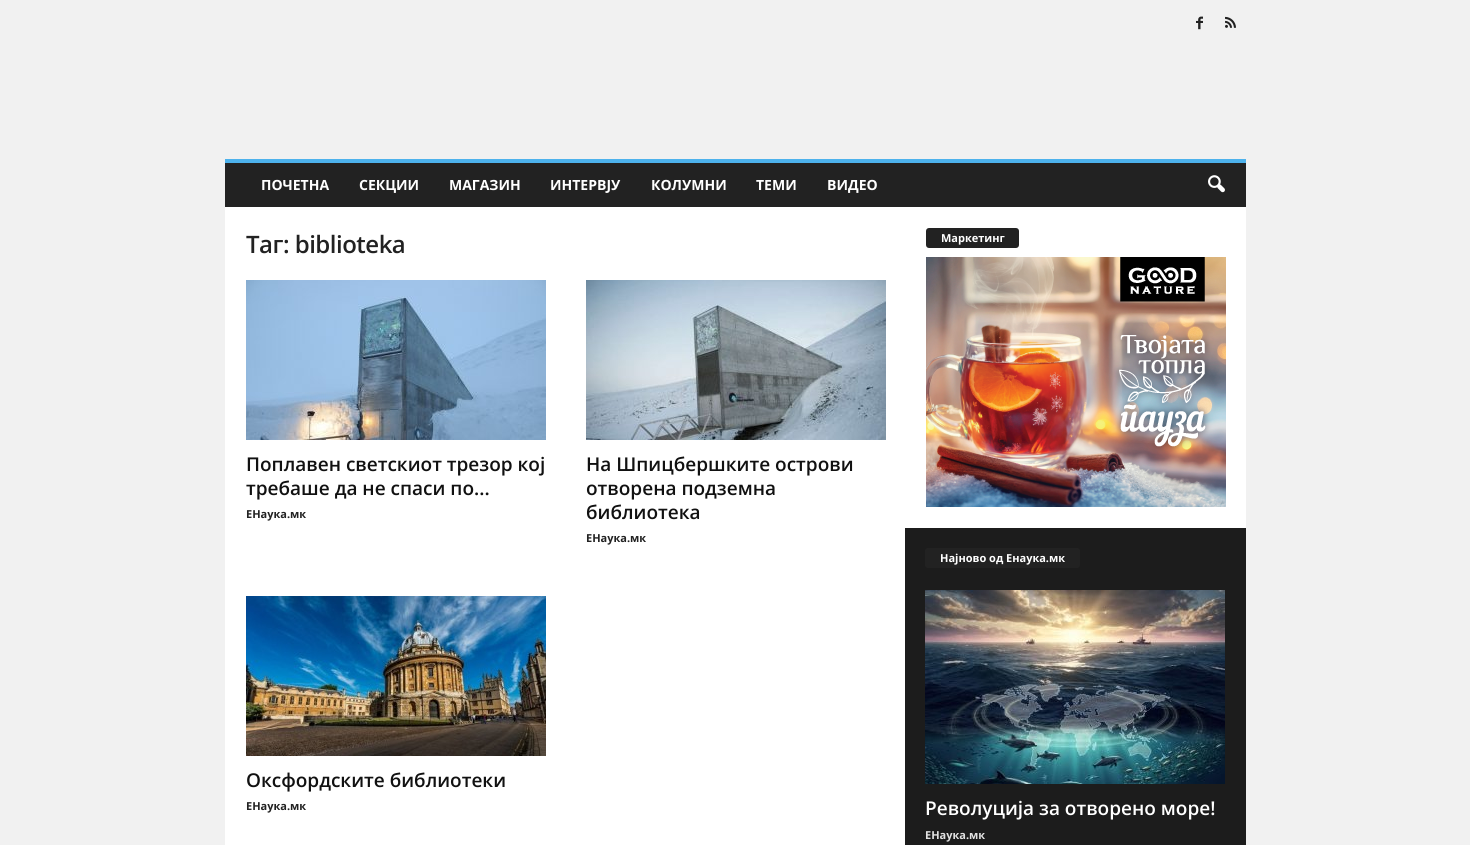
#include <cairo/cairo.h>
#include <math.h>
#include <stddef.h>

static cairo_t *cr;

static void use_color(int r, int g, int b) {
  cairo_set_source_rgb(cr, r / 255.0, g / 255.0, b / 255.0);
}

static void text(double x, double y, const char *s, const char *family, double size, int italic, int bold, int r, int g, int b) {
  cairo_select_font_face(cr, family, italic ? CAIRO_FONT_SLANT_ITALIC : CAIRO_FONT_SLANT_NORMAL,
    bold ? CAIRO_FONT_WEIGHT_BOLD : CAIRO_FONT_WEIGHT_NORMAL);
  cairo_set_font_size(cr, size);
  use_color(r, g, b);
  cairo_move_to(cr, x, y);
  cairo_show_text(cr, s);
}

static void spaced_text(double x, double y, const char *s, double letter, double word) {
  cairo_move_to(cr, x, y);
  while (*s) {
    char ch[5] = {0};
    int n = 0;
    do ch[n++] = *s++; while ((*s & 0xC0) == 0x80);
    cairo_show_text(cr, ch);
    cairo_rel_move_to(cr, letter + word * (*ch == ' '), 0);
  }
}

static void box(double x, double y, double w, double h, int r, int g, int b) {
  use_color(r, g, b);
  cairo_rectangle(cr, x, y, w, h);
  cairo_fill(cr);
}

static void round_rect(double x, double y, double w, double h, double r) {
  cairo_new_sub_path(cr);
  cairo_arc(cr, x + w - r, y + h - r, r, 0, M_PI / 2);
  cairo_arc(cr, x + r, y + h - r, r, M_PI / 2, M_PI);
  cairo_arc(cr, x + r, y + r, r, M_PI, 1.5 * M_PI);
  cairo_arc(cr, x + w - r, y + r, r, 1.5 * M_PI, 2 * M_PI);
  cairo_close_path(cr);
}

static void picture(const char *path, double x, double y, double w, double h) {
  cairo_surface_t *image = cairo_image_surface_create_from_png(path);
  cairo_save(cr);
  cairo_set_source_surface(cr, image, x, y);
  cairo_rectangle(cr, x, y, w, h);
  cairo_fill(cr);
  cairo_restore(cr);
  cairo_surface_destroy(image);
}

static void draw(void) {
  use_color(241, 241, 241);
  cairo_paint(cr);
  picture("img_01.png", 1196, 16, 7, 14);
  picture("img_02.png", 1225, 16, 11, 12);
  box(225, 163, 1021, 44, 34, 34, 34);
  box(225, 159, 1021, 4, 77, 178, 236);
  picture("img_03.png", 1208, 175, 17, 18);
  box(225, 207, 1021, 638, 255, 255, 255);
  picture("img_04.png", 246, 280, 300, 160);
  picture("img_05.png", 586, 280, 300, 160);
  picture("img_06.png", 246, 596, 300, 160);
  use_color(34, 34, 34);
  round_rect(926, 228, 93, 20, 3);
  cairo_fill(cr);
  picture("img_07.png", 926, 257, 300, 250);
  box(905, 528, 341, 317, 28, 28, 28);
  use_color(34, 34, 34);
  round_rect(925, 548, 155, 20, 3);
  cairo_fill(cr);
  picture("img_08.png", 925, 590, 300, 194);
  text(261, 190, "ПОЧЕТНА", "Open Sans", 14, 0, 1, 255, 255, 255);
  text(359, 190, "СЕКЦИИ", "Open Sans", 14, 0, 1, 255, 255, 255);
  text(449, 190, "МАГАЗИН", "Open Sans", 14, 0, 1, 255, 255, 255);
  text(550, 190, "ИНТЕРВЈУ", "Open Sans", 14, 0, 1, 255, 255, 255);
  text(651, 190, "КОЛУМНИ", "Open Sans", 14, 0, 1, 255, 255, 255);
  text(756, 190, "ТЕМИ", "Open Sans", 14, 0, 1, 255, 255, 255);
  text(827, 190, "ВИДЕО", "Open Sans", 14, 0, 1, 255, 255, 255);
  cairo_select_font_face(cr, "Open Sans SemiBold", CAIRO_FONT_SLANT_NORMAL, CAIRO_FONT_WEIGHT_NORMAL);
  cairo_set_font_size(cr, 24);
  use_color(34, 34, 34);
  spaced_text(246, 253, "Таг: biblioteka", -0.5, 0);
  text(246, 471, "Поплавен светскиот трезор кој", "Open Sans SemiBold", 19, 0, 0, 17, 17, 17);
  text(246, 495, "требаше да не спаси по...", "Open Sans SemiBold", 19, 0, 0, 17, 17, 17);
  text(246, 518, "ЕНаука.мк", "Open Sans", 11, 0, 1, 34, 34, 34);
  text(586, 471, "На Шпицбершките острови", "Open Sans SemiBold", 19, 0, 0, 17, 17, 17);
  text(586, 495, "отворена подземна", "Open Sans SemiBold", 19, 0, 0, 17, 17, 17);
  text(586, 519, "библиотека", "Open Sans SemiBold", 19, 0, 0, 17, 17, 17);
  text(586, 542, "ЕНаука.мк", "Open Sans", 11, 0, 1, 34, 34, 34);
  text(246, 787, "Оксфордските библиотеки", "Open Sans SemiBold", 19, 0, 0, 17, 17, 17);
  text(246, 810, "ЕНаука.мк", "Open Sans", 11, 0, 1, 34, 34, 34);
  text(941, 242, "Маркетинг", "Open Sans", 11, 0, 1, 255, 255, 255);
  text(940, 562, "Најново од Енаука.мк", "Open Sans", 11, 0, 1, 255, 255, 255);
  text(925, 815, "Револуција за отворено море!", "Open Sans SemiBold", 19, 0, 0, 255, 255, 255);
  text(925, 839, "ЕНаука.мк", "Open Sans", 11, 0, 1, 226, 226, 226);
}

int main(void) {
  cairo_surface_t *surface = cairo_image_surface_create(CAIRO_FORMAT_RGB24, 1470, 845);
  cr = cairo_create(surface);
  cairo_font_options_t *options = cairo_font_options_create();
  cairo_font_options_set_hint_metrics(options, CAIRO_HINT_METRICS_OFF);
  cairo_font_options_set_hint_style(options, CAIRO_HINT_STYLE_NONE);
  cairo_set_font_options(cr, options);
  cairo_set_miter_limit(cr, 4);
  draw();
  cairo_surface_write_to_png(surface, "out.png");
  cairo_font_options_destroy(options);
  cairo_destroy(cr);
  cairo_surface_destroy(surface);
  return 0;
}
